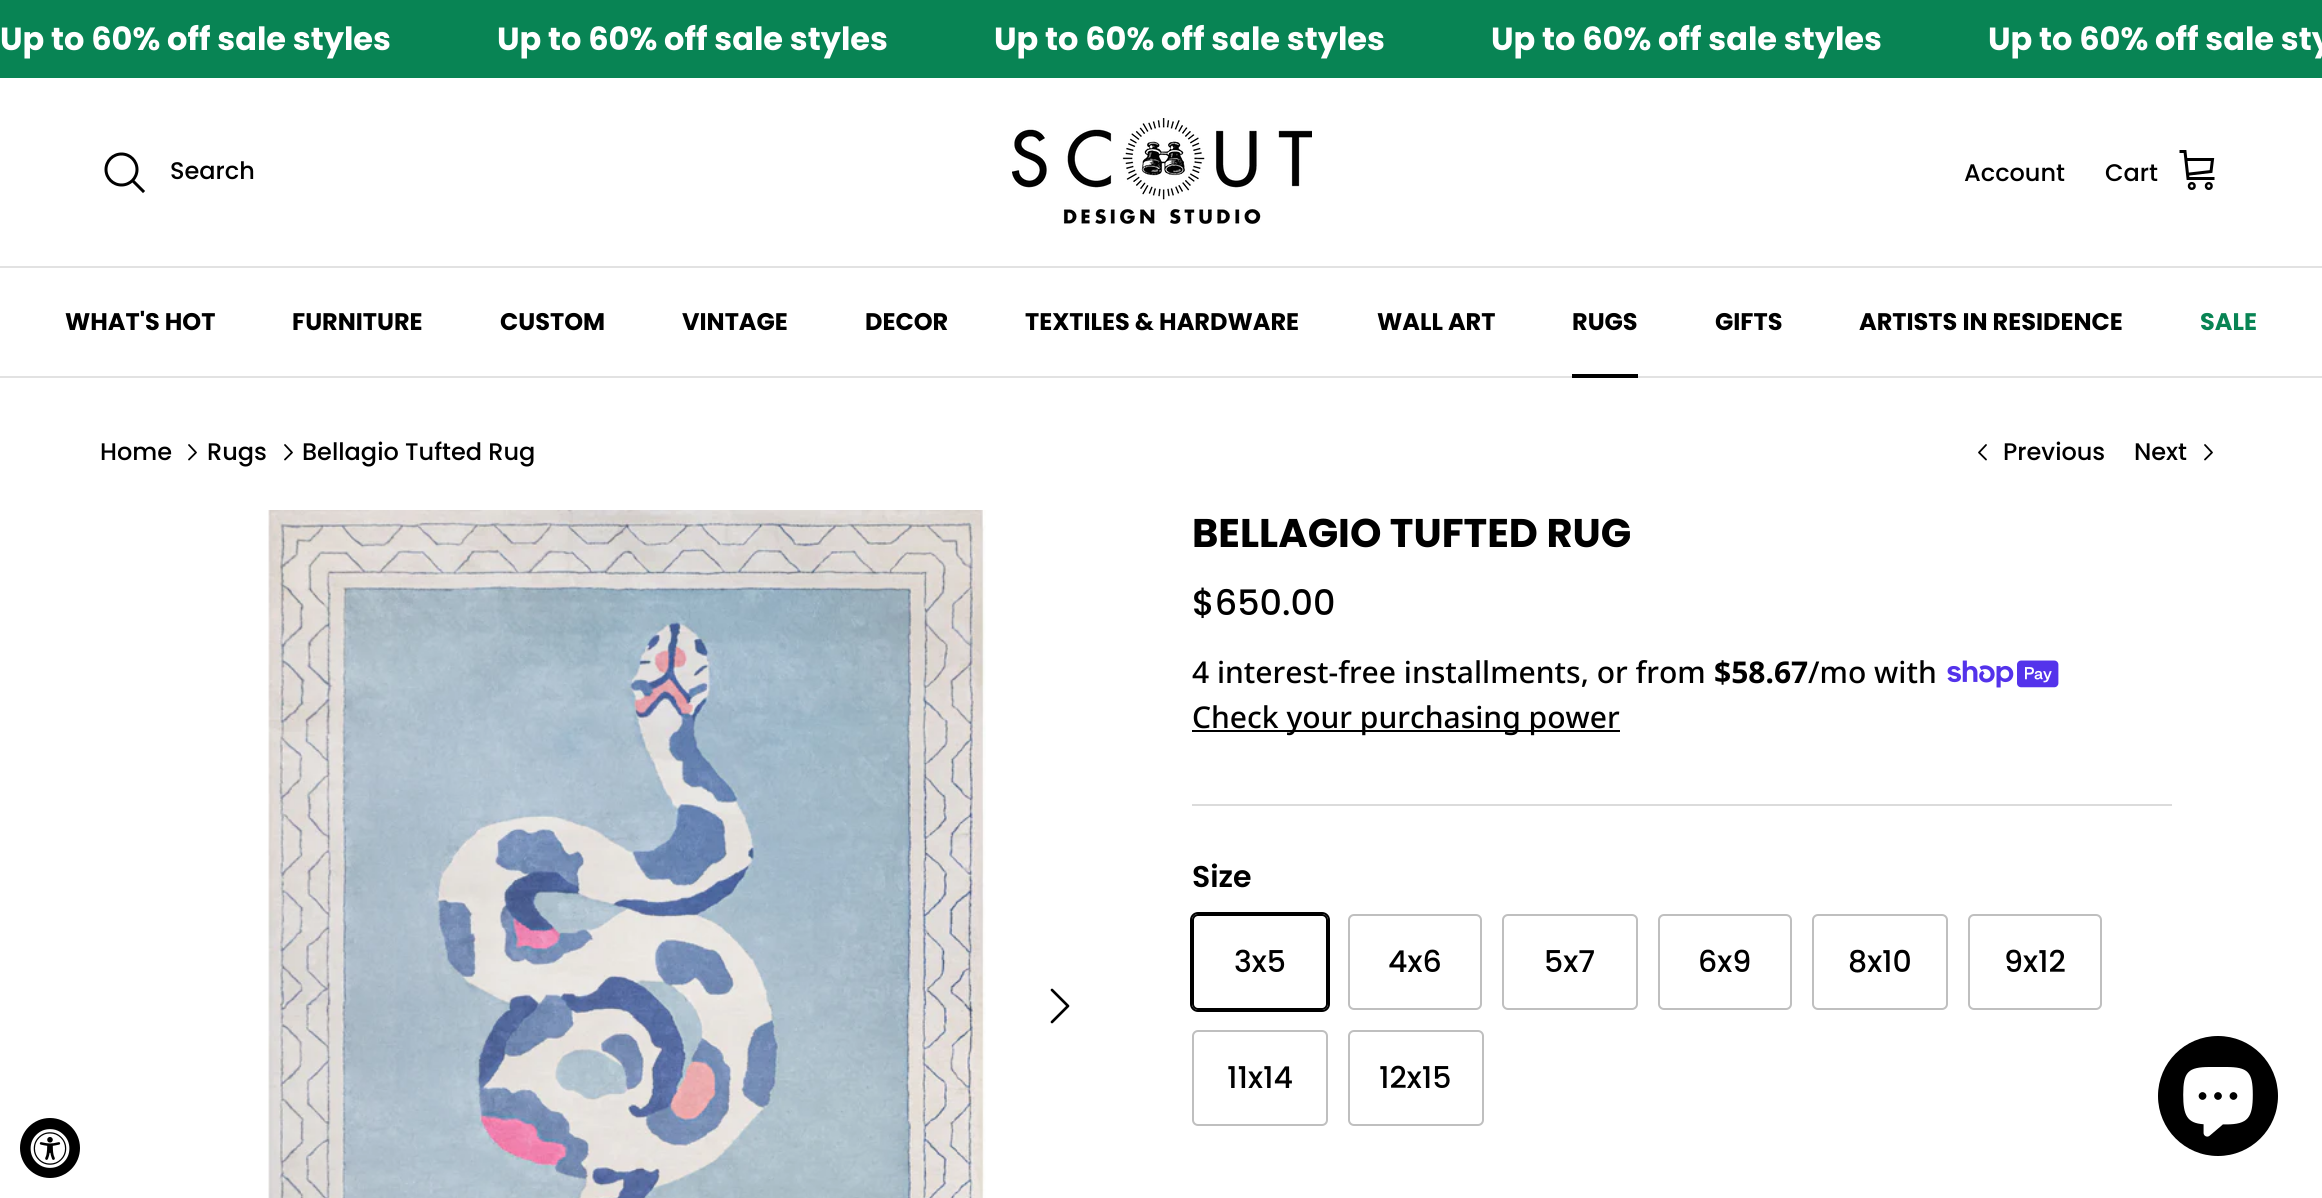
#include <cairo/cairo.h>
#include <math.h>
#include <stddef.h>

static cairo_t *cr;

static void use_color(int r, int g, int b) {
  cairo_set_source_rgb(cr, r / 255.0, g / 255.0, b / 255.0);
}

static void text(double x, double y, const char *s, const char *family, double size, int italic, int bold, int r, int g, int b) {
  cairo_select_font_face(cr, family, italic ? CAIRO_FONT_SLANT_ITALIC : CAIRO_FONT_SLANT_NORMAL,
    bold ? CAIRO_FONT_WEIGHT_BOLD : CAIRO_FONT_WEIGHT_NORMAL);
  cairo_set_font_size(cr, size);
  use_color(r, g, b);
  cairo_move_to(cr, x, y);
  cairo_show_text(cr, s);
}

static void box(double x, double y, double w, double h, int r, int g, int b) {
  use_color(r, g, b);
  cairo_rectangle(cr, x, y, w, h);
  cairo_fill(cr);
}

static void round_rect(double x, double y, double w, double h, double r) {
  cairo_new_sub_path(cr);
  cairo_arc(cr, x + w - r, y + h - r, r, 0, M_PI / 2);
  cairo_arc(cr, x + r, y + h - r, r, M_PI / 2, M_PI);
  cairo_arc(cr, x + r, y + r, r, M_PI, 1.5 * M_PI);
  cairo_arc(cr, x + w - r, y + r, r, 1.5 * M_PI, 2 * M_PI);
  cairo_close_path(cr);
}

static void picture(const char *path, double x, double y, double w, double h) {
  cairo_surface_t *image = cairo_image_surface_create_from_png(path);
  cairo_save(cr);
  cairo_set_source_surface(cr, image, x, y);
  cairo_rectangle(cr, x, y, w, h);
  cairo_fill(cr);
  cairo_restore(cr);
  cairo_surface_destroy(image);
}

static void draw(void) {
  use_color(255, 255, 255);
  cairo_paint(cr);
  box(0, 0, 2322, 78, 8, 132, 84);
  box(0, 266, 2322, 2, 226, 226, 226);
  cairo_arc(cr, 121.5, 169.5, 15.5, 0, 2 * M_PI);
  use_color(0, 0, 0);
  cairo_set_line_width(cr, 3);
  cairo_stroke(cr);
  cairo_new_path(cr);
  cairo_move_to(cr, 134, 182);
  cairo_line_to(cr, 143, 191);
  cairo_set_line_cap(cr, CAIRO_LINE_CAP_SQUARE);
  cairo_stroke(cr);
  picture("img_01.png", 1012, 118, 300, 106);
  cairo_new_path(cr);
  cairo_move_to(cr, 2181, 151.5);
  cairo_line_to(cr, 2185, 151.5);
  cairo_line_to(cr, 2188, 178.5);
  cairo_line_to(cr, 2213, 178.5);
  cairo_move_to(cr, 2186.5, 159.5);
  cairo_line_to(cr, 2212.5, 159.5);
  cairo_line_to(cr, 2211, 171.5);
  cairo_line_to(cr, 2189.5, 174);
  cairo_stroke(cr);
  cairo_arc(cr, 2191.8, 186, 2.8, 0, 2 * M_PI);
  cairo_set_line_width(cr, 2.5);
  cairo_set_line_cap(cr, CAIRO_LINE_CAP_BUTT);
  cairo_stroke(cr);
  cairo_arc(cr, 2208.8, 186, 2.8, 0, 2 * M_PI);
  cairo_stroke(cr);
  box(0, 376, 2322, 2, 226, 226, 226);
  box(1572, 374, 66, 4, 0, 0, 0);
  cairo_arc(cr, 50, 1148, 30, 0, 2 * M_PI);
  cairo_fill(cr);
  picture("img_02.png", 30, 1129, 40, 39);
  cairo_new_path(cr);
  cairo_move_to(cr, 189, 459.5);
  cairo_line_to(cr, 196, 452.5);
  cairo_line_to(cr, 189, 445);
  cairo_set_line_width(cr, 1.8);
  cairo_set_line_cap(cr, CAIRO_LINE_CAP_ROUND);
  cairo_set_line_join(cr, CAIRO_LINE_JOIN_ROUND);
  cairo_stroke(cr);
  cairo_new_path(cr);
  cairo_move_to(cr, 285, 459.5);
  cairo_line_to(cr, 292, 452.5);
  cairo_line_to(cr, 285, 445);
  cairo_stroke(cr);
  cairo_new_path(cr);
  cairo_move_to(cr, 1986, 459.5);
  cairo_line_to(cr, 1979, 452.5);
  cairo_line_to(cr, 1986, 445);
  cairo_stroke(cr);
  cairo_new_path(cr);
  cairo_move_to(cr, 2205, 459.5);
  cairo_line_to(cr, 2212, 452.5);
  cairo_line_to(cr, 2205, 445);
  cairo_stroke(cr);
  picture("img_03.png", 268, 510, 718, 688);
  cairo_new_path(cr);
  cairo_move_to(cr, 1052, 1022);
  cairo_line_to(cr, 1068, 1006);
  cairo_line_to(cr, 1052, 990);
  cairo_set_line_width(cr, 2.7);
  cairo_stroke(cr);
  picture("img_04.png", 1947, 660, 112, 28);
  box(1192, 730, 428, 2, 0, 0, 0);
  box(1192, 804, 980, 2, 219, 219, 219);
  round_rect(1191, 913, 138, 98, 7);
  use_color(0, 0, 0);
  cairo_set_line_width(cr, 2);
  cairo_set_line_cap(cr, CAIRO_LINE_CAP_BUTT);
  cairo_set_line_join(cr, CAIRO_LINE_JOIN_MITER);
  cairo_stroke(cr);
  use_color(255, 255, 255);
  round_rect(1193, 915, 134, 94, 5);
  cairo_fill_preserve(cr);
  use_color(0, 0, 0);
  cairo_stroke(cr);
  round_rect(1349, 915, 132, 94, 5);
  use_color(191, 191, 191);
  cairo_stroke(cr);
  round_rect(1503, 915, 134, 94, 5);
  cairo_stroke(cr);
  round_rect(1659, 915, 132, 94, 5);
  cairo_stroke(cr);
  round_rect(1813, 915, 134, 94, 5);
  cairo_stroke(cr);
  round_rect(1969, 915, 132, 94, 5);
  cairo_stroke(cr);
  round_rect(1193, 1031, 134, 94, 5);
  cairo_stroke(cr);
  round_rect(1349, 1031, 134, 94, 5);
  cairo_stroke(cr);
  use_color(0, 0, 0);
  cairo_arc(cr, 2218, 1096, 60, 0, 2 * M_PI);
  cairo_fill(cr);
  picture("img_05.png", 2183, 1067, 70, 70);
  text(0, 50, "Up to 60% off sale styles", "Poppins", 32, 0, 1, 255, 255, 255);
  text(497, 50, "Up to 60% off sale styles", "Poppins", 32, 0, 1, 255, 255, 255);
  text(994, 50, "Up to 60% off sale styles", "Poppins", 32, 0, 1, 255, 255, 255);
  text(1491, 50, "Up to 60% off sale styles", "Poppins", 32, 0, 1, 255, 255, 255);
  text(1988, 50, "Up to 60% off sale sty", "Poppins", 32, 0, 1, 255, 255, 255);
  text(170, 179, "Search", "Poppins Medium", 24, 0, 0, 0, 0, 0);
  text(1964, 181, "Account", "Poppins Medium", 24, 0, 0, 0, 0, 0);
  text(2105, 181, "Cart", "Poppins Medium", 24, 0, 0, 0, 0, 0);
  text(65, 330, "WHAT'S HOT", "Poppins", 24, 0, 1, 0, 0, 0);
  text(292, 330, "FURNITURE", "Poppins", 24, 0, 1, 0, 0, 0);
  text(500, 330, "CUSTOM", "Poppins", 24, 0, 1, 0, 0, 0);
  text(682, 330, "VINTAGE", "Poppins", 24, 0, 1, 0, 0, 0);
  text(865, 330, "DECOR", "Poppins", 24, 0, 1, 0, 0, 0);
  text(1025, 330, "TEXTILES & HARDWARE", "Poppins", 24, 0, 1, 0, 0, 0);
  text(1377, 330, "WALL ART", "Poppins", 24, 0, 1, 0, 0, 0);
  text(1572, 330, "RUGS", "Poppins", 24, 0, 1, 0, 0, 0);
  text(1715, 330, "GIFTS", "Poppins", 24, 0, 1, 0, 0, 0);
  text(1859, 330, "ARTISTS IN RESIDENCE", "Poppins", 24, 0, 1, 0, 0, 0);
  text(2200, 330, "SALE", "Poppins", 24, 0, 1, 8, 132, 84);
  text(100, 460, "Home", "Poppins Medium", 24, 0, 0, 0, 0, 0);
  text(207, 460, "Rugs", "Poppins Medium", 24, 0, 0, 0, 0, 0);
  text(302, 460, "Bellagio Tufted Rug", "Poppins Medium", 24, 0, 0, 0, 0, 0);
  text(2003, 460, "Previous", "Poppins Medium", 24, 0, 0, 0, 0, 0);
  text(2134, 460, "Next", "Poppins Medium", 24, 0, 0, 0, 0, 0);
  text(1192, 547, "BELLAGIO TUFTED RUG", "Poppins", 40, 0, 1, 0, 0, 0);
  text(1192, 615, "$650.00", "Poppins Medium", 35, 0, 0, 0, 0, 0);
  text(1192, 683, "4 interest-free installments, or from", "Noto Sans Medium", 30, 0, 0, 0, 0, 0);
  text(1714, 683, "$58.67", "Noto Sans", 30, 0, 1, 0, 0, 0);
  text(1808, 683, "/mo with", "Noto Sans Medium", 30, 0, 0, 0, 0, 0);
  text(1192, 728, "Check your purchasing power", "Noto Sans Medium", 30, 0, 0, 0, 0, 0);
  text(1192, 887, "Size", "Poppins SemiBold", 30, 0, 0, 0, 0, 0);
  text(1234, 972, "3x5", "Poppins Medium", 30, 0, 0, 0, 0, 0);
  text(1388, 972, "4x6", "Poppins Medium", 30, 0, 0, 0, 0, 0);
  text(1544, 972, "5x7", "Poppins Medium", 30, 0, 0, 0, 0, 0);
  text(1698, 972, "6x9", "Poppins Medium", 30, 0, 0, 0, 0, 0);
  text(1848, 972, "8x10", "Poppins Medium", 30, 0, 0, 0, 0, 0);
  text(2004, 972, "9x12", "Poppins Medium", 30, 0, 0, 0, 0, 0);
  text(1227, 1088, "11x14", "Poppins Medium", 30, 0, 0, 0, 0, 0);
  text(1379, 1088, "12x15", "Poppins Medium", 30, 0, 0, 0, 0, 0);
}

int main(void) {
  cairo_surface_t *surface = cairo_image_surface_create(CAIRO_FORMAT_RGB24, 2322, 1198);
  cr = cairo_create(surface);
  cairo_font_options_t *options = cairo_font_options_create();
  cairo_font_options_set_hint_metrics(options, CAIRO_HINT_METRICS_OFF);
  cairo_font_options_set_hint_style(options, CAIRO_HINT_STYLE_NONE);
  cairo_set_font_options(cr, options);
  cairo_set_miter_limit(cr, 4);
  draw();
  cairo_surface_write_to_png(surface, "out.png");
  cairo_font_options_destroy(options);
  cairo_destroy(cr);
  cairo_surface_destroy(surface);
  return 0;
}
